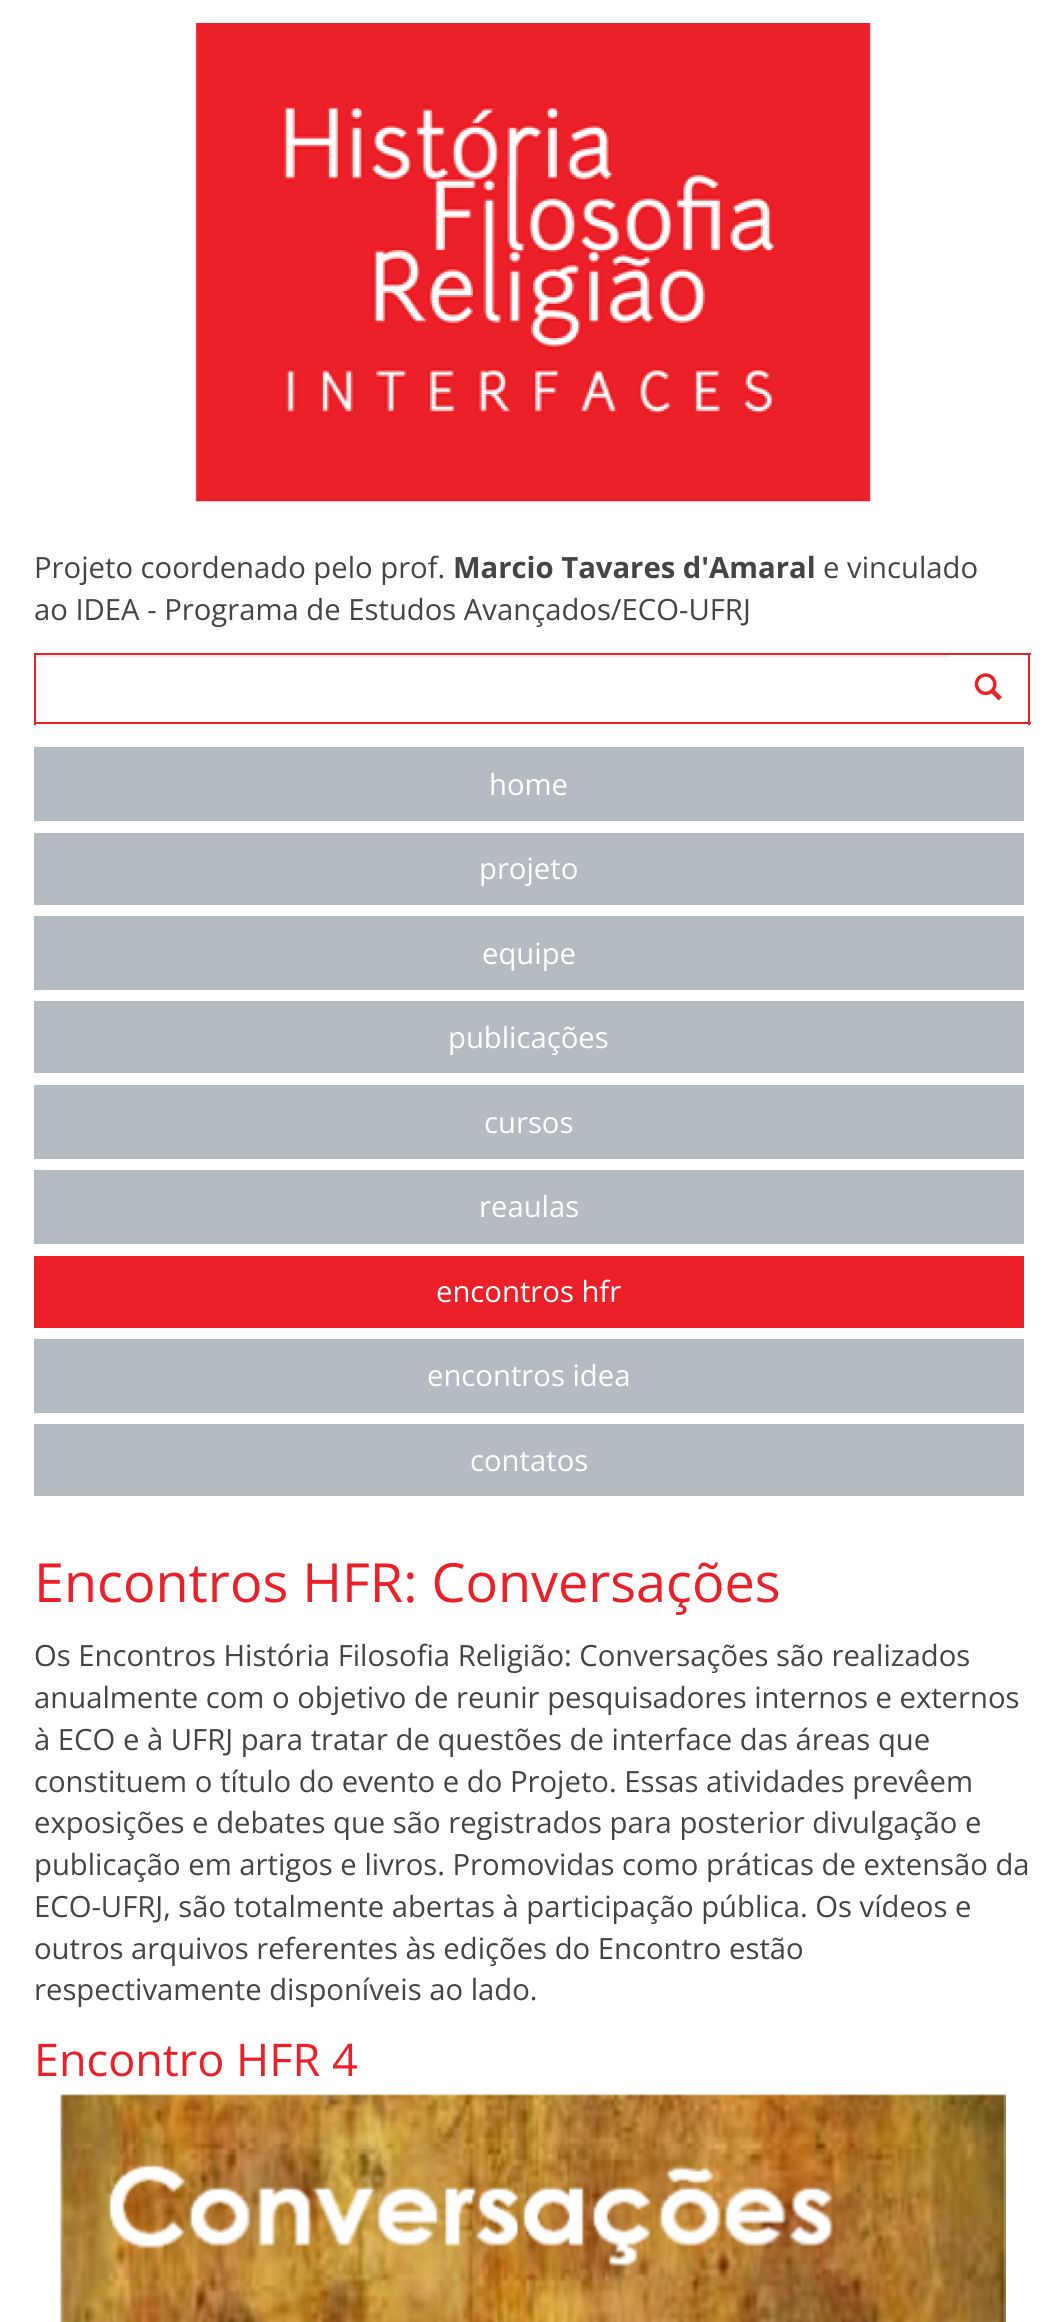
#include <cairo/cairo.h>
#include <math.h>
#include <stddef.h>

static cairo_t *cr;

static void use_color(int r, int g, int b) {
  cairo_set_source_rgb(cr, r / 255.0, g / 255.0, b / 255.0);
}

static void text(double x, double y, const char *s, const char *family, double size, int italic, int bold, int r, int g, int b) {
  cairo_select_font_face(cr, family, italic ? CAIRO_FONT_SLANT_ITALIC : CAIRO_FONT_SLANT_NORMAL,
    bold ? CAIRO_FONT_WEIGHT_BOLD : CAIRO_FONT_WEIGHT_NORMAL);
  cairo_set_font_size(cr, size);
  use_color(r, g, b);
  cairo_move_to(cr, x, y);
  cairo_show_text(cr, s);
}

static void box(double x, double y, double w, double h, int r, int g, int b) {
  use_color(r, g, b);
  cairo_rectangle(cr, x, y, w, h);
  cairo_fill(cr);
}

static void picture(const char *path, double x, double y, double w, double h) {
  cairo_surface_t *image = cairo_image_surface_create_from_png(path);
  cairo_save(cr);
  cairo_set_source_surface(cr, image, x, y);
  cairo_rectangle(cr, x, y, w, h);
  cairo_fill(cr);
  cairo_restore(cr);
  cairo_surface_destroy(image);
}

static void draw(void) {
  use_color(255, 255, 255);
  cairo_paint(cr);
  picture("img_01.png", 195, 23, 676, 479);
  box(34, 653, 997, 2, 236, 32, 40);
  box(1028, 653, 2, 72, 236, 32, 40);
  box(947, 722, 84, 2, 236, 32, 40);
  picture("img_02.png", 974, 673, 28, 28);
  box(947, 722, 3, 2, 255, 255, 255);
  box(36, 655, 914, 2, 236, 236, 236);
  box(34, 722, 916, 2, 236, 32, 40);
  box(34, 653, 2, 72, 236, 32, 40);
  box(34, 747, 990, 74, 180, 187, 193);
  box(34, 833, 990, 72, 180, 187, 193);
  box(34, 916, 990, 74, 180, 187, 193);
  box(34, 1001, 990, 72, 180, 187, 193);
  box(34, 1085, 990, 74, 180, 187, 193);
  box(34, 1170, 990, 74, 180, 187, 193);
  box(34, 1256, 990, 72, 236, 32, 40);
  box(34, 1339, 990, 74, 180, 187, 193);
  box(34, 1424, 990, 72, 180, 187, 193);
  picture("img_03.png", 60, 2094, 946, 228);
  text(34, 578, "Projeto coordenado pelo prof.", "Open Sans", 29.25, 0, 0, 68, 68, 68);
  text(453, 578, "Marcio Tavares d'Amaral", "Open Sans", 29.25, 0, 1, 68, 68, 68);
  text(823, 578, "e vinculado", "Open Sans", 29.25, 0, 0, 68, 68, 68);
  text(34, 620, "ao IDEA - Programa de Estudos Avançados/ECO-UFRJ", "Open Sans", 29.25, 0, 0, 68, 68, 68);
  text(489, 795, "home", "Open Sans", 29.25, 0, 0, 255, 255, 255);
  text(479, 879, "projeto", "Open Sans", 29.25, 0, 0, 255, 255, 255);
  text(482, 964, "equipe", "Open Sans", 29.25, 0, 0, 255, 255, 255);
  text(448, 1048, "publicações", "Open Sans", 29.25, 0, 0, 255, 255, 255);
  text(484, 1133, "cursos", "Open Sans", 29.25, 0, 0, 255, 255, 255);
  text(479, 1217, "reaulas", "Open Sans", 29.25, 0, 0, 255, 255, 255);
  text(436, 1302, "encontros hfr", "Open Sans", 29.25, 0, 0, 255, 255, 255);
  text(427, 1386, "encontros idea", "Open Sans", 29.25, 0, 0, 255, 255, 255);
  text(470, 1471, "contatos", "Open Sans", 29.25, 0, 0, 255, 255, 255);
  text(34, 1602, "Encontros HFR: Conversações", "Open Sans", 54, 0, 0, 236, 32, 40);
  text(34, 1666, "Os Encontros História Filosofia Religião: Conversações são realizados", "Open Sans", 29.25, 0, 0, 68, 68, 68);
  text(34, 1708, "anualmente com o objetivo de reunir pesquisadores internos e externos", "Open Sans", 29.25, 0, 0, 68, 68, 68);
  text(34, 1750, "à ECO e à UFRJ para tratar de questões de interface das áreas que", "Open Sans", 29.25, 0, 0, 68, 68, 68);
  text(34, 1792, "constituem o título do evento e do Projeto. Essas atividades prevêem", "Open Sans", 29.25, 0, 0, 68, 68, 68);
  text(34, 1833, "exposições e debates que são registrados para posterior divulgação e", "Open Sans", 29.25, 0, 0, 68, 68, 68);
  text(34, 1875, "publicação em artigos e livros. Promovidas como práticas de extensão da", "Open Sans", 29.25, 0, 0, 68, 68, 68);
  text(34, 1917, "ECO-UFRJ, são totalmente abertas à participação pública. Os vídeos e", "Open Sans", 29.25, 0, 0, 68, 68, 68);
  text(34, 1959, "outros arquivos referentes às edições do Encontro estão", "Open Sans", 29.25, 0, 0, 68, 68, 68);
  text(34, 2000, "respectivamente disponíveis ao lado.", "Open Sans", 29.25, 0, 0, 68, 68, 68);
  text(34, 2076, "Encontro HFR 4", "Open Sans", 45, 0, 0, 236, 32, 40);
}

int main(void) {
  cairo_surface_t *surface = cairo_image_surface_create(CAIRO_FORMAT_RGB24, 1063, 2322);
  cr = cairo_create(surface);
  cairo_font_options_t *options = cairo_font_options_create();
  cairo_font_options_set_hint_metrics(options, CAIRO_HINT_METRICS_OFF);
  cairo_font_options_set_hint_style(options, CAIRO_HINT_STYLE_NONE);
  cairo_set_font_options(cr, options);
  cairo_set_miter_limit(cr, 4);
  draw();
  cairo_surface_write_to_png(surface, "out.png");
  cairo_font_options_destroy(options);
  cairo_destroy(cr);
  cairo_surface_destroy(surface);
  return 0;
}
